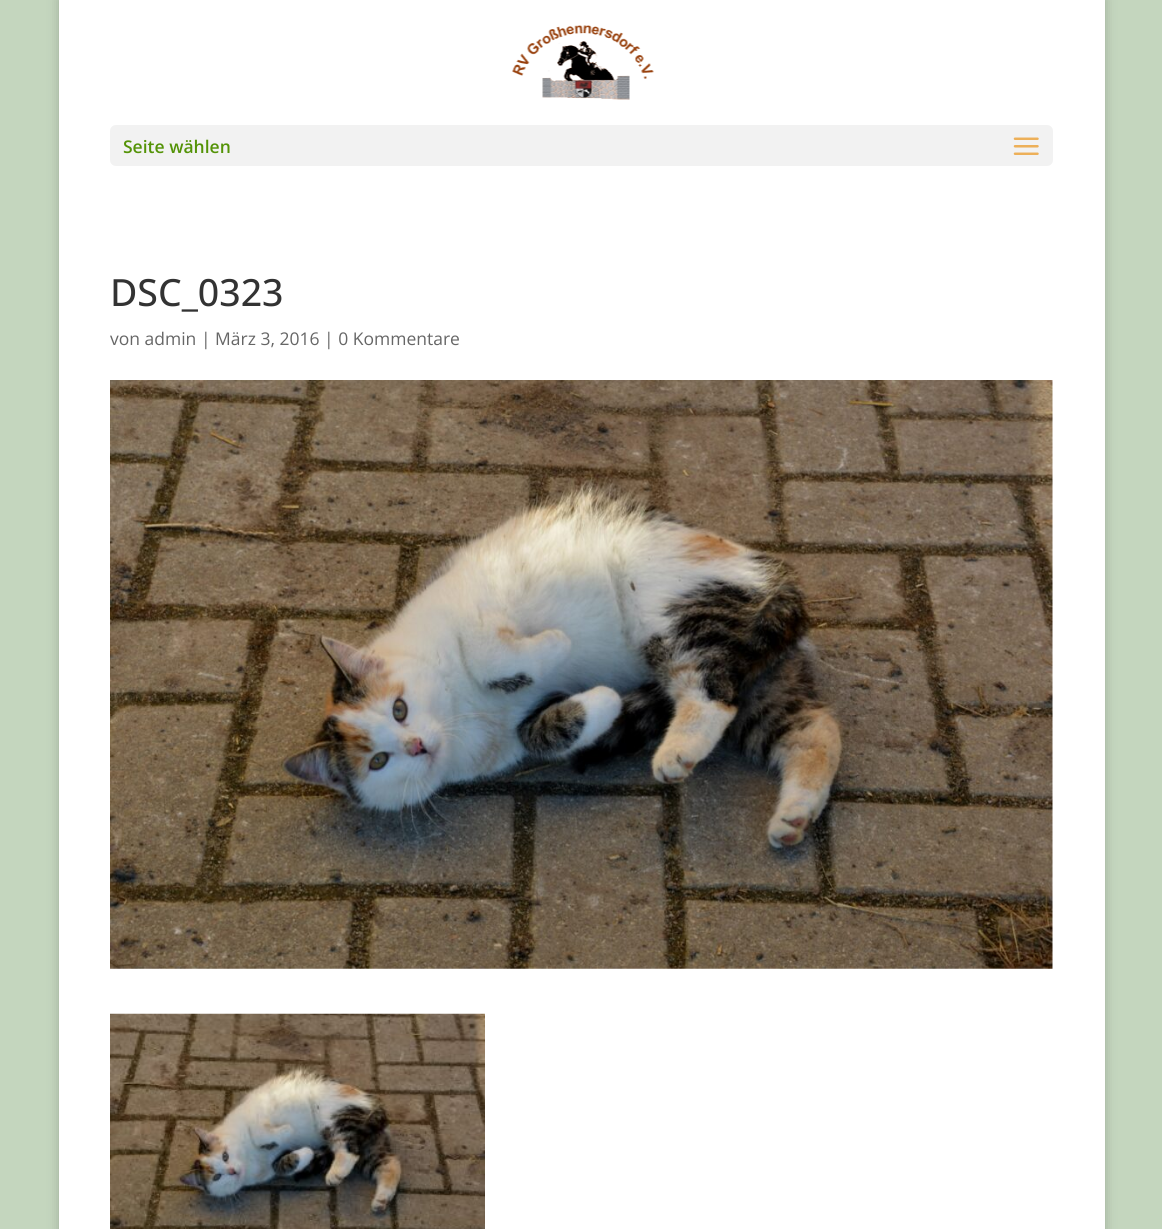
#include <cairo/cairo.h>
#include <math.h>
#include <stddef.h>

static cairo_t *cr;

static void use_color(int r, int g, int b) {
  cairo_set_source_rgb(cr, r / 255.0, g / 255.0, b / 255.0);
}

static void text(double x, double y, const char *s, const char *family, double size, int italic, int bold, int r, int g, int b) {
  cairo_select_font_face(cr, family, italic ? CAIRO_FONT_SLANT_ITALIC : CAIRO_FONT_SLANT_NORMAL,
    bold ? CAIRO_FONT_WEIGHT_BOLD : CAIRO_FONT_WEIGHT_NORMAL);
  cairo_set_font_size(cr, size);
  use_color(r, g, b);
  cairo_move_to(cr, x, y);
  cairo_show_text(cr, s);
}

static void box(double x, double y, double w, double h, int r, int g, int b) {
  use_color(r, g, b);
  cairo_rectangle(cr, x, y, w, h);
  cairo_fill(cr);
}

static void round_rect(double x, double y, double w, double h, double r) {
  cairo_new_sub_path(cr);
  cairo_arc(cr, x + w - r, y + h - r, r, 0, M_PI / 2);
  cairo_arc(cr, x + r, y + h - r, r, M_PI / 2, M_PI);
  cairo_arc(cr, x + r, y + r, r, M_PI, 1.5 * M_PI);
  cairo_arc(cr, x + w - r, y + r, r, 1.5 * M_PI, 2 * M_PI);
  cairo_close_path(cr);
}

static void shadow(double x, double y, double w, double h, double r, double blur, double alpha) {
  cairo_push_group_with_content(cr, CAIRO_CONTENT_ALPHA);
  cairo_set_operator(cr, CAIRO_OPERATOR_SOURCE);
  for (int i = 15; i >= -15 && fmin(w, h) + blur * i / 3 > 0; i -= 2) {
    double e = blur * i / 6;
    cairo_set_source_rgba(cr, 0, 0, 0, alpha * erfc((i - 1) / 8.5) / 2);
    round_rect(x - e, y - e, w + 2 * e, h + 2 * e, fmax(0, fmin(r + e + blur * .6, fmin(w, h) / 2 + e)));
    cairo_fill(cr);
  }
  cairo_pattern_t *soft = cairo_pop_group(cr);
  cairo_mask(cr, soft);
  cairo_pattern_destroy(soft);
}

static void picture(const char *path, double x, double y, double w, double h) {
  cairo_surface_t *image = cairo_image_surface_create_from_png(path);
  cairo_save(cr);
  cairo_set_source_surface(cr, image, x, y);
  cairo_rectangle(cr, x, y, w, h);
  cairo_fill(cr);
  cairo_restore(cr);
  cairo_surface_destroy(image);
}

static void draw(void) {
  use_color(196, 214, 190);
  cairo_paint(cr);
  use_color(0, 0, 0);
  shadow(59, -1, 1046, 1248, 0, 6, 0.2);
  box(59, 0, 1046, 1229, 255, 255, 255);
  picture("img_01.png", 512, 25, 142, 75);
  use_color(242, 242, 242);
  round_rect(110, 125, 943, 41, 6);
  cairo_fill(cr);
  picture("img_02.png", 1013, 137, 26, 18);
  picture("img_03.png", 110, 380, 943, 589);
  picture("img_04.png", 110, 1013, 375, 216);
  text(123, 153, "Seite wählen", "Open Sans SemiBold", 17.5, 0, 0, 84, 147, 7);
  text(110, 306, "DSC_0323", "Open Sans Medium", 37.5, 0, 0, 51, 51, 51);
  text(110, 345, "von admin | März 3, 2016 | 0 Kommentare", "Open Sans", 17.5, 0, 0, 102, 102, 102);
}

int main(void) {
  cairo_surface_t *surface = cairo_image_surface_create(CAIRO_FORMAT_RGB24, 1162, 1229);
  cr = cairo_create(surface);
  cairo_font_options_t *options = cairo_font_options_create();
  cairo_font_options_set_hint_metrics(options, CAIRO_HINT_METRICS_OFF);
  cairo_font_options_set_hint_style(options, CAIRO_HINT_STYLE_NONE);
  cairo_set_font_options(cr, options);
  cairo_set_miter_limit(cr, 4);
  draw();
  cairo_surface_write_to_png(surface, "out.png");
  cairo_font_options_destroy(options);
  cairo_destroy(cr);
  cairo_surface_destroy(surface);
  return 0;
}
